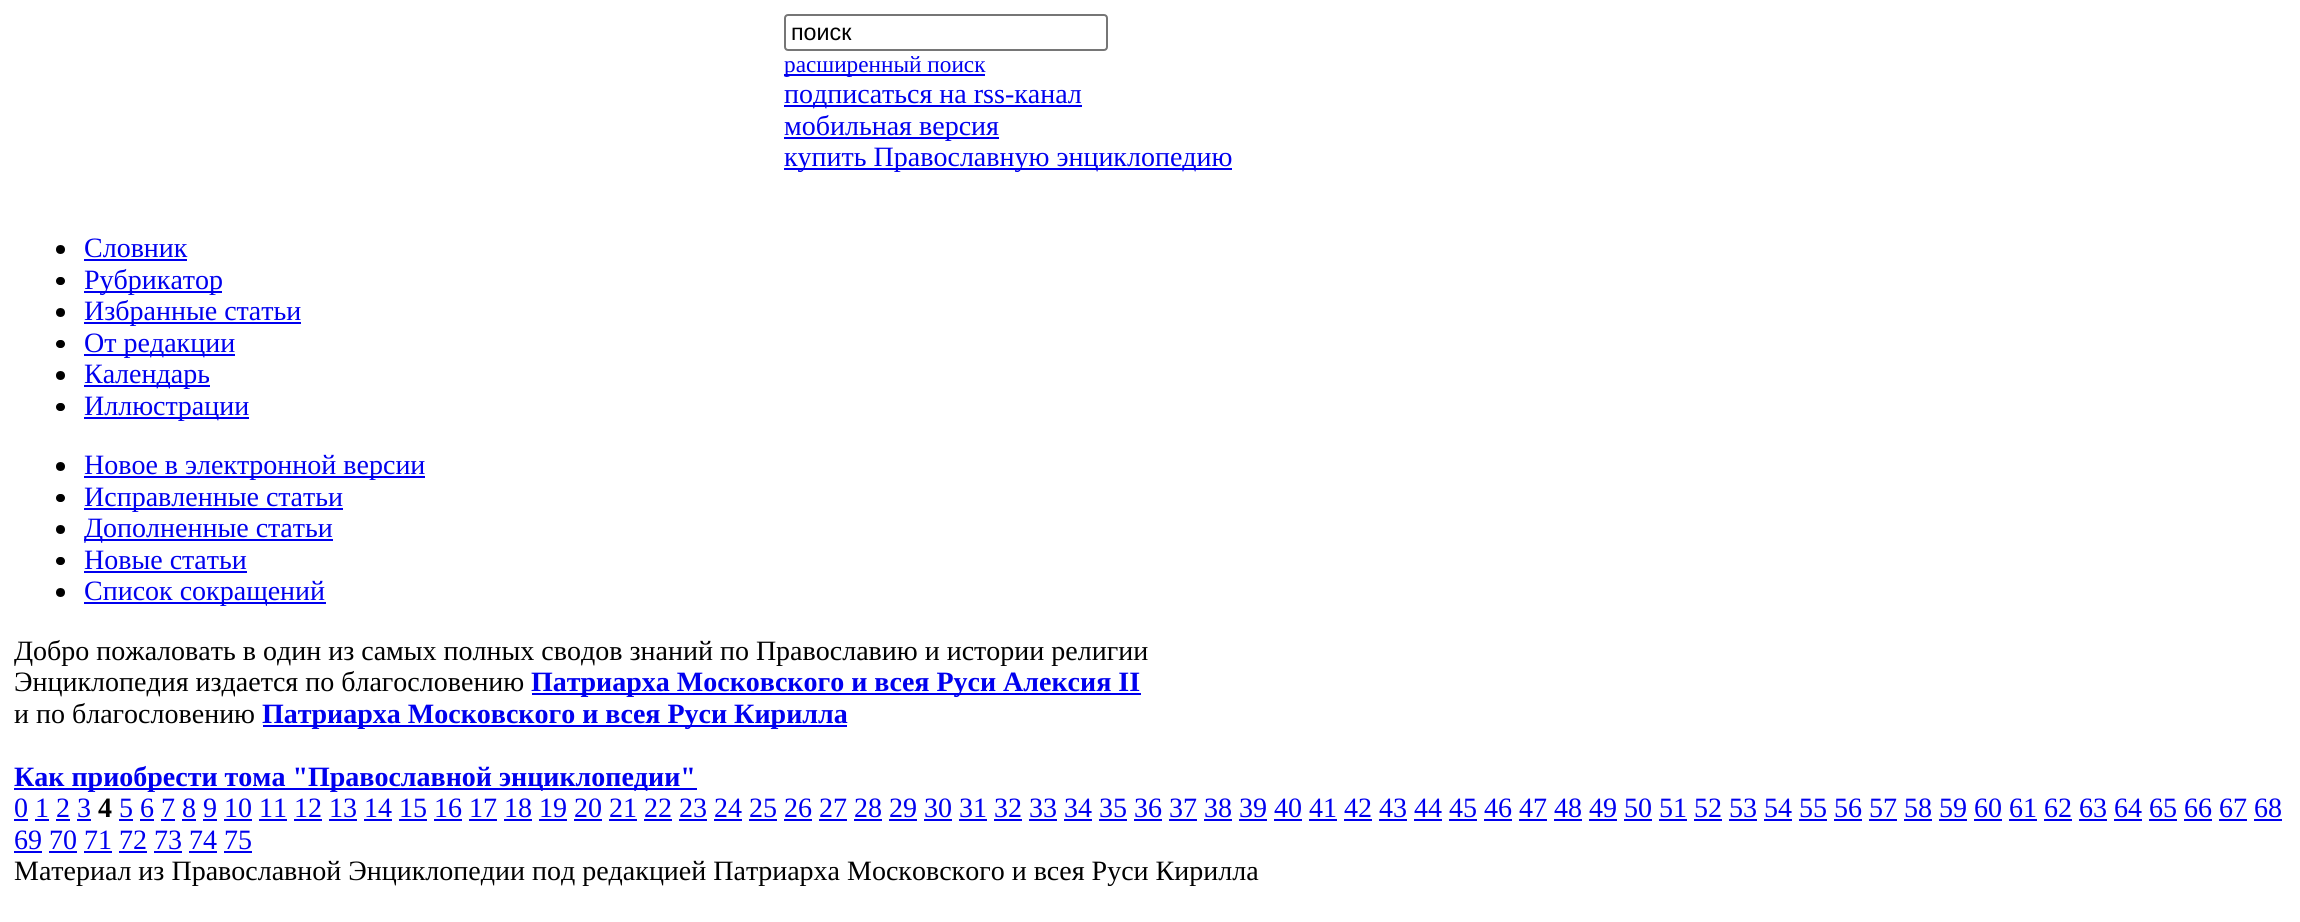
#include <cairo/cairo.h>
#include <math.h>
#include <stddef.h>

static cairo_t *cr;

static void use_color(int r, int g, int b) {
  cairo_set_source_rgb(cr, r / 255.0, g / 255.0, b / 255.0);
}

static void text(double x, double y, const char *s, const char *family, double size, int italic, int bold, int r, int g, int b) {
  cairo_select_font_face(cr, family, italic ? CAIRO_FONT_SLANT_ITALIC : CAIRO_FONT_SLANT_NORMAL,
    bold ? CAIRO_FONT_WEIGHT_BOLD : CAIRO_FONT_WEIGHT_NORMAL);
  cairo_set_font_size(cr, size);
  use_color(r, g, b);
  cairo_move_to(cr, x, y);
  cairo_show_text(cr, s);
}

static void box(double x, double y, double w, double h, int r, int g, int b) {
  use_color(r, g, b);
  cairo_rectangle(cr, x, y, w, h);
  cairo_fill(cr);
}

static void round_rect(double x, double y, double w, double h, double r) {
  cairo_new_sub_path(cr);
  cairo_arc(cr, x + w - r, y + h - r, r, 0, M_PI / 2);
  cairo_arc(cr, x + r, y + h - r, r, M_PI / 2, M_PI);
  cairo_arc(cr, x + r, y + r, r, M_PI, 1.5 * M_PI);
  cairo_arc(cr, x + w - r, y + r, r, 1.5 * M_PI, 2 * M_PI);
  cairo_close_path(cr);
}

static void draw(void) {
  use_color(255, 255, 255);
  cairo_paint(cr);
  round_rect(785, 15, 322, 35, 3);
  use_color(118, 118, 118);
  cairo_stroke(cr);
  box(784, 74, 201, 2, 0, 0, 238);
  box(784, 105, 298, 2, 0, 0, 238);
  box(784, 137, 215, 2, 0, 0, 238);
  box(784, 168, 448, 2, 0, 0, 238);
  use_color(0, 0, 0);
  cairo_arc(cr, 60.5, 249.5, 4.5, 0, 2 * M_PI);
  cairo_fill(cr);
  box(84, 259, 103, 2, 0, 0, 238);
  use_color(0, 0, 0);
  round_rect(56, 277, 9, 8, 4);
  cairo_fill(cr);
  box(84, 291, 138, 2, 0, 0, 238);
  use_color(0, 0, 0);
  cairo_arc(cr, 60.5, 312.5, 4.5, 0, 2 * M_PI);
  cairo_fill(cr);
  box(84, 322, 217, 2, 0, 0, 238);
  use_color(0, 0, 0);
  round_rect(56, 340, 9, 8, 4);
  cairo_fill(cr);
  box(84, 354, 151, 2, 0, 0, 238);
  use_color(0, 0, 0);
  cairo_arc(cr, 60.5, 375.5, 4.5, 0, 2 * M_PI);
  cairo_fill(cr);
  box(84, 385, 126, 2, 0, 0, 238);
  use_color(0, 0, 0);
  round_rect(56, 403, 9, 8, 4);
  cairo_fill(cr);
  box(84, 417, 165, 2, 0, 0, 238);
  use_color(0, 0, 0);
  cairo_arc(cr, 60.5, 466.5, 4.5, 0, 2 * M_PI);
  cairo_fill(cr);
  box(84, 476, 341, 2, 0, 0, 238);
  use_color(0, 0, 0);
  round_rect(56, 494, 9, 8, 4);
  cairo_fill(cr);
  box(84, 508, 259, 2, 0, 0, 238);
  use_color(0, 0, 0);
  cairo_arc(cr, 60.5, 529.5, 4.5, 0, 2 * M_PI);
  cairo_fill(cr);
  box(84, 539, 249, 2, 0, 0, 238);
  use_color(0, 0, 0);
  round_rect(56, 557, 9, 8, 4);
  cairo_fill(cr);
  box(84, 571, 163, 2, 0, 0, 238);
  use_color(0, 0, 0);
  cairo_arc(cr, 60.5, 592.5, 4.5, 0, 2 * M_PI);
  cairo_fill(cr);
  box(84, 602, 242, 2, 0, 0, 238);
  box(532, 693, 609, 2, 0, 0, 238);
  box(263, 725, 584, 2, 0, 0, 238);
  box(14, 788, 683, 2, 0, 0, 238);
  box(14, 819, 14, 2, 0, 0, 238);
  box(119, 819, 14, 2, 0, 0, 238);
  box(35, 819, 14, 2, 0, 0, 238);
  box(56, 819, 14, 2, 0, 0, 238);
  box(77, 819, 14, 2, 0, 0, 238);
  box(140, 819, 14, 2, 0, 0, 238);
  box(161, 819, 14, 2, 0, 0, 238);
  box(182, 819, 14, 2, 0, 0, 238);
  box(203, 819, 14, 2, 0, 0, 238);
  box(224, 819, 28, 2, 0, 0, 238);
  box(259, 819, 28, 2, 0, 0, 238);
  box(294, 819, 28, 2, 0, 0, 238);
  box(329, 819, 28, 2, 0, 0, 238);
  box(364, 819, 28, 2, 0, 0, 238);
  box(399, 819, 28, 2, 0, 0, 238);
  box(434, 819, 28, 2, 0, 0, 238);
  box(469, 819, 28, 2, 0, 0, 238);
  box(504, 819, 28, 2, 0, 0, 238);
  box(539, 819, 28, 2, 0, 0, 238);
  box(574, 819, 28, 2, 0, 0, 238);
  box(609, 819, 28, 2, 0, 0, 238);
  box(644, 819, 28, 2, 0, 0, 238);
  box(679, 819, 28, 2, 0, 0, 238);
  box(714, 819, 28, 2, 0, 0, 238);
  box(749, 819, 28, 2, 0, 0, 238);
  box(784, 819, 28, 2, 0, 0, 238);
  box(819, 819, 28, 2, 0, 0, 238);
  box(854, 819, 28, 2, 0, 0, 238);
  box(889, 819, 28, 2, 0, 0, 238);
  box(924, 819, 28, 2, 0, 0, 238);
  box(959, 819, 28, 2, 0, 0, 238);
  box(994, 819, 28, 2, 0, 0, 238);
  box(1029, 819, 28, 2, 0, 0, 238);
  box(1064, 819, 28, 2, 0, 0, 238);
  box(1099, 819, 28, 2, 0, 0, 238);
  box(1134, 819, 28, 2, 0, 0, 238);
  box(1169, 819, 28, 2, 0, 0, 238);
  box(1204, 819, 28, 2, 0, 0, 238);
  box(1239, 819, 28, 2, 0, 0, 238);
  box(1274, 819, 28, 2, 0, 0, 238);
  box(1309, 819, 28, 2, 0, 0, 238);
  box(1344, 819, 28, 2, 0, 0, 238);
  box(1379, 819, 28, 2, 0, 0, 238);
  box(1414, 819, 28, 2, 0, 0, 238);
  box(1449, 819, 28, 2, 0, 0, 238);
  box(1484, 819, 28, 2, 0, 0, 238);
  box(1519, 819, 28, 2, 0, 0, 238);
  box(1554, 819, 28, 2, 0, 0, 238);
  box(1589, 819, 28, 2, 0, 0, 238);
  box(1624, 819, 28, 2, 0, 0, 238);
  box(1659, 819, 28, 2, 0, 0, 238);
  box(1694, 819, 28, 2, 0, 0, 238);
  box(1729, 819, 28, 2, 0, 0, 238);
  box(1764, 819, 28, 2, 0, 0, 238);
  box(1799, 819, 28, 2, 0, 0, 238);
  box(1834, 819, 28, 2, 0, 0, 238);
  box(1869, 819, 28, 2, 0, 0, 238);
  box(1904, 819, 28, 2, 0, 0, 238);
  box(1939, 819, 28, 2, 0, 0, 238);
  box(1974, 819, 28, 2, 0, 0, 238);
  box(2009, 819, 28, 2, 0, 0, 238);
  box(2044, 819, 28, 2, 0, 0, 238);
  box(2079, 819, 28, 2, 0, 0, 238);
  box(2114, 819, 28, 2, 0, 0, 238);
  box(2149, 819, 28, 2, 0, 0, 238);
  box(2184, 819, 28, 2, 0, 0, 238);
  box(2219, 819, 28, 2, 0, 0, 238);
  box(2254, 819, 28, 2, 0, 0, 238);
  box(14, 851, 28, 2, 0, 0, 238);
  box(49, 851, 28, 2, 0, 0, 238);
  box(84, 851, 28, 2, 0, 0, 238);
  box(119, 851, 28, 2, 0, 0, 238);
  box(154, 851, 28, 2, 0, 0, 238);
  box(189, 851, 28, 2, 0, 0, 238);
  box(224, 851, 28, 2, 0, 0, 238);
  text(791, 40, "поиск", "Liberation Sans", 23.25, 0, 0, 0, 0, 0);
  text(784, 72, "расширенный поиск", "Liberation Serif", 23.25, 0, 0, 0, 0, 238);
  text(784, 103, "подписаться на rss-канал", "Liberation Serif", 28, 0, 0, 0, 0, 238);
  text(784, 135, "мобильная версия", "Liberation Serif", 28, 0, 0, 0, 0, 238);
  text(784, 166, "купить Православную энциклопедию", "Liberation Serif", 28, 0, 0, 0, 0, 238);
  text(84, 257, "Словник", "Liberation Serif", 28, 0, 0, 0, 0, 238);
  text(84, 289, "Рубрикатор", "Liberation Serif", 28, 0, 0, 0, 0, 238);
  text(84, 320, "Избранные статьи", "Liberation Serif", 28, 0, 0, 0, 0, 238);
  text(84, 352, "От редакции", "Liberation Serif", 28, 0, 0, 0, 0, 238);
  text(84, 383, "Календарь", "Liberation Serif", 28, 0, 0, 0, 0, 238);
  text(84, 415, "Иллюстрации", "Liberation Serif", 28, 0, 0, 0, 0, 238);
  text(84, 474, "Новое в электронной версии", "Liberation Serif", 28, 0, 0, 0, 0, 238);
  text(84, 506, "Исправленные статьи", "Liberation Serif", 28, 0, 0, 0, 0, 238);
  text(84, 537, "Дополненные статьи", "Liberation Serif", 28, 0, 0, 0, 0, 238);
  text(84, 569, "Новые статьи", "Liberation Serif", 28, 0, 0, 0, 0, 238);
  text(84, 600, "Список сокращений", "Liberation Serif", 28, 0, 0, 0, 0, 238);
  text(14, 660, "Добро пожаловать в один из самых полных сводов знаний по Православию и истории религии", "Liberation Serif", 28, 0, 0, 0, 0, 0);
  text(14, 691, "Энциклопедия издается по благословению", "Liberation Serif", 28, 0, 0, 0, 0, 0);
  text(531, 691, "Патриарха Московского и всея Руси Алексия II", "Liberation Serif", 28, 0, 1, 0, 0, 238);
  text(14, 723, "и по благословению", "Liberation Serif", 28, 0, 0, 0, 0, 0);
  text(262, 723, "Патриарха Московского и всея Руси Кирилла", "Liberation Serif", 28, 0, 1, 0, 0, 238);
  text(14, 786, "Как приобрести тома \"Православной энциклопедии\"", "Liberation Serif", 28, 0, 1, 0, 0, 238);
  text(14, 817, "0 1 2 3", "Liberation Serif", 28, 0, 0, 0, 0, 238);
  text(98, 817, "4", "Liberation Serif", 28, 0, 1, 0, 0, 0);
  text(119, 817, "5 6 7 8 9 10 11 12 13 14 15 16 17 18 19 20 21 22 23 24 25 26 27 28 29 30 31 32 33 34 35 36 37 38 39 40 41 42 43 44 45 46 47 48 49 50 51 52 53 54 55 56 57 58 59 60 61 62 63 64 65 66 67 68", "Liberation Serif", 28, 0, 0, 0, 0, 238);
  text(14, 849, "69 70 71 72 73 74 75", "Liberation Serif", 28, 0, 0, 0, 0, 238);
  text(14, 880, "Материал из Православной Энциклопедии под редакцией Патриарха Московского и всея Руси Кирилла", "Liberation Serif", 28, 0, 0, 0, 0, 0);
}

int main(void) {
  cairo_surface_t *surface = cairo_image_surface_create(CAIRO_FORMAT_RGB24, 2300, 922);
  cr = cairo_create(surface);
  cairo_font_options_t *options = cairo_font_options_create();
  cairo_font_options_set_hint_metrics(options, CAIRO_HINT_METRICS_OFF);
  cairo_font_options_set_hint_style(options, CAIRO_HINT_STYLE_NONE);
  cairo_set_font_options(cr, options);
  cairo_set_miter_limit(cr, 4);
  draw();
  cairo_surface_write_to_png(surface, "out.png");
  cairo_font_options_destroy(options);
  cairo_destroy(cr);
  cairo_surface_destroy(surface);
  return 0;
}
